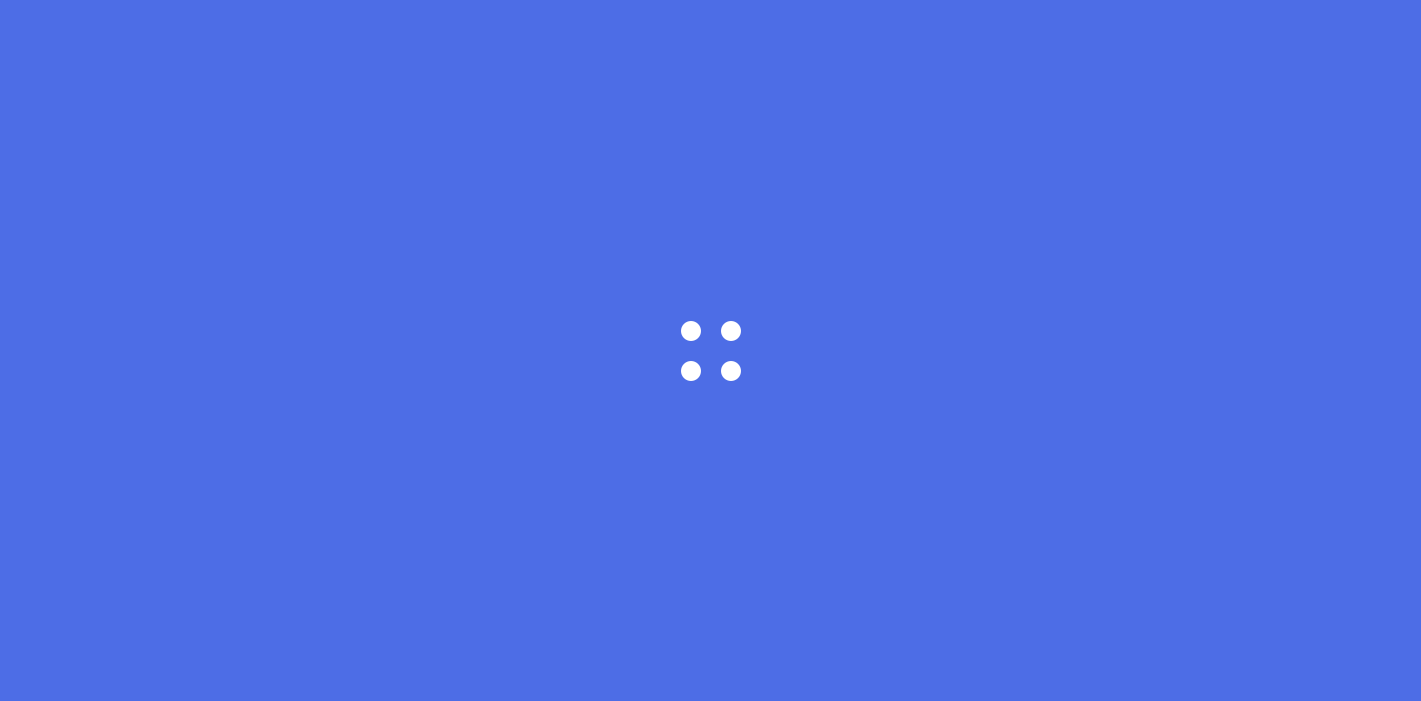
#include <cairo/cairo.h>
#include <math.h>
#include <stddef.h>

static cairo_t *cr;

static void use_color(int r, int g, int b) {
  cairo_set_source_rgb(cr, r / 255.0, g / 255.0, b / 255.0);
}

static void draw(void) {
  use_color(77, 109, 230);
  cairo_paint(cr);
  use_color(255, 255, 255);
  cairo_arc(cr, 691, 331, 10, 0, 2 * M_PI);
  cairo_fill(cr);
  cairo_arc(cr, 731, 331, 10, 0, 2 * M_PI);
  cairo_fill(cr);
  cairo_arc(cr, 691, 371, 10, 0, 2 * M_PI);
  cairo_fill(cr);
  cairo_arc(cr, 731, 371, 10, 0, 2 * M_PI);
  cairo_fill(cr);
}

int main(void) {
  cairo_surface_t *surface = cairo_image_surface_create(CAIRO_FORMAT_RGB24, 1421, 701);
  cr = cairo_create(surface);
  cairo_font_options_t *options = cairo_font_options_create();
  cairo_font_options_set_hint_metrics(options, CAIRO_HINT_METRICS_OFF);
  cairo_font_options_set_hint_style(options, CAIRO_HINT_STYLE_NONE);
  cairo_set_font_options(cr, options);
  cairo_set_miter_limit(cr, 4);
  draw();
  cairo_surface_write_to_png(surface, "out.png");
  cairo_font_options_destroy(options);
  cairo_destroy(cr);
  cairo_surface_destroy(surface);
  return 0;
}
